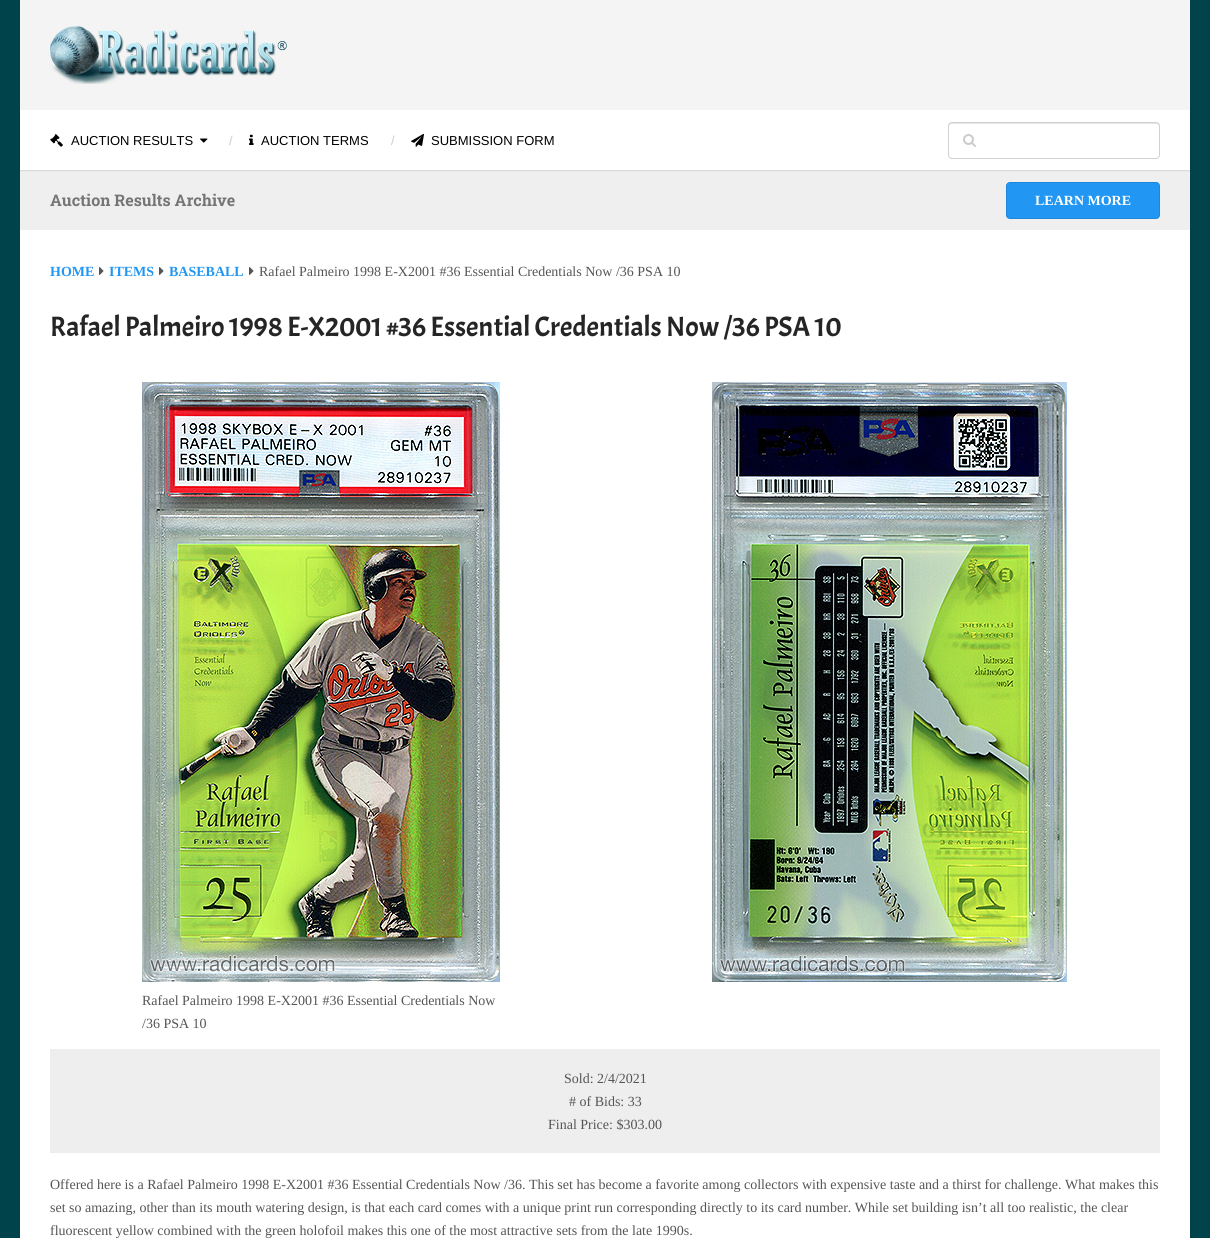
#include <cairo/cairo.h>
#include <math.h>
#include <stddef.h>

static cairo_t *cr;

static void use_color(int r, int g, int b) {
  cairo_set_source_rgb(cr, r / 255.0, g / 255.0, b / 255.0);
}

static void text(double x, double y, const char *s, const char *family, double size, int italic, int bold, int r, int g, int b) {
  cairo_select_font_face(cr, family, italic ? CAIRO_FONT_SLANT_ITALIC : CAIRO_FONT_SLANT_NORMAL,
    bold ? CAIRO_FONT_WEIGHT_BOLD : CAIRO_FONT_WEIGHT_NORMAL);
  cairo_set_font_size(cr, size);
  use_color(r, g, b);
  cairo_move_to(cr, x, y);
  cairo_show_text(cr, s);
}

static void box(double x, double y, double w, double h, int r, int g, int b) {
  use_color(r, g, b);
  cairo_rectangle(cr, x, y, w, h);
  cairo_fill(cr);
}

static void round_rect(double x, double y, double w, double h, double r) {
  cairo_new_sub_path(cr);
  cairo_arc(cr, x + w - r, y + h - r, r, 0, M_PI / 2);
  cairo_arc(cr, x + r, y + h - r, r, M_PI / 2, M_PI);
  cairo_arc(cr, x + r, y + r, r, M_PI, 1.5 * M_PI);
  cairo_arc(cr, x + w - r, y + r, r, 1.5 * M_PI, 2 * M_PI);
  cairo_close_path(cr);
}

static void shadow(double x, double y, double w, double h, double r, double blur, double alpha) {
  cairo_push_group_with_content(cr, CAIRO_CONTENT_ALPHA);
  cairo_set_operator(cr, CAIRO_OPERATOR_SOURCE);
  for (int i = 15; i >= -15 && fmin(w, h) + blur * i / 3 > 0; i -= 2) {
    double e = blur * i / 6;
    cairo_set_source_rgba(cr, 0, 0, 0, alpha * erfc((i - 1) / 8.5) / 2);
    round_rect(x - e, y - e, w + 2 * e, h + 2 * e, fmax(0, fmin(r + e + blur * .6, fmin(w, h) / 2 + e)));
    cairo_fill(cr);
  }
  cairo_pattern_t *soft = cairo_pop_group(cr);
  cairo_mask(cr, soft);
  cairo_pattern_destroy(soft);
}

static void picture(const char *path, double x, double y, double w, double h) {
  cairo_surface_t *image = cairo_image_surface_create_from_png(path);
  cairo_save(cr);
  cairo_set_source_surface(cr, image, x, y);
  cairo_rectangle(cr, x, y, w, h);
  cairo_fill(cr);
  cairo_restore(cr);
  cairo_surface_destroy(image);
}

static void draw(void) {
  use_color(0, 67, 75);
  cairo_paint(cr);
  box(20, 0, 1170, 110, 243, 244, 243);
  picture("img_01.png", 50, 26, 237, 58);
  box(20, 170, 1170, 60, 239, 239, 239);
  use_color(0, 0, 0);
  shadow(20, 111, 1170, 60, 0, 0.5, 0.1);
  box(20, 110, 1170, 60, 255, 255, 255);
  picture("img_02.png", 50, 134, 13, 13);
  picture("img_03.png", 200, 138, 8, 5);
  picture("img_04.png", 249, 134, 5, 11);
  picture("img_05.png", 411, 133, 13, 14);
  use_color(230, 230, 230);
  cairo_new_path(cr);
  cairo_move_to(cr, 952, 124);
  cairo_line_to(cr, 1156, 124);
  cairo_curve_to(cr, 1158, 124, 1159, 125, 1159, 127);
  cairo_line_to(cr, 1159, 126);
  cairo_curve_to(cr, 1159, 124, 1158, 123, 1156, 123);
  cairo_line_to(cr, 952, 123);
  cairo_curve_to(cr, 950, 123, 949, 124, 949, 126);
  cairo_line_to(cr, 949, 127);
  cairo_curve_to(cr, 949, 125, 950, 124, 952, 124);
  cairo_close_path(cr);
  cairo_fill(cr);
  round_rect(948.5, 122.5, 211, 36, 3.5);
  cairo_set_source_rgba(cr, 0, 0, 0, 0.18);
  cairo_set_line_width(cr, 1);
  cairo_stroke(cr);
  picture("img_06.png", 963, 134, 13, 13);
  use_color(33, 150, 243);
  round_rect(1006, 182, 154, 37, 4);
  cairo_fill(cr);
  round_rect(1006.5, 182.5, 153, 36, 3.5);
  cairo_set_source_rgba(cr, 0, 0, 0, 0.1);
  cairo_stroke(cr);
  box(20, 230, 1170, 1008, 255, 255, 255);
  picture("img_07.png", 99, 267, 5, 8);
  picture("img_07.png", 159, 267, 5, 8);
  picture("img_07.png", 249, 267, 5, 8);
  picture("img_08.png", 712, 382, 355, 600);
  picture("img_09.png", 142, 382, 358, 600);
  box(50, 1049, 1110, 104, 238, 238, 238);
  text(71, 145, "AUCTION RESULTS", "Liberation Sans", 13, 0, 0, 0, 0, 0);
  text(229, 145, "/", "Liberation Sans", 13, 0, 0, 204, 204, 204);
  text(261, 145, "AUCTION TERMS", "Liberation Sans", 13, 0, 0, 0, 0, 0);
  text(391, 145, "/", "Liberation Sans", 13, 0, 0, 204, 204, 204);
  text(431, 145, "SUBMISSION FORM", "Liberation Sans", 13, 0, 0, 0, 0, 0);
  text(50, 206, "Auction Results Archive", "Roboto Slab", 16, 0, 1, 117, 117, 117);
  text(1035, 205, "LEARN MORE", "Liberation Serif", 14, 0, 1, 255, 255, 255);
  text(50, 276, "HOME", "Liberation Serif", 14, 0, 1, 33, 150, 243);
  text(109, 276, "ITEMS", "Liberation Serif", 14, 0, 1, 33, 150, 243);
  text(169, 276, "BASEBALL", "Liberation Serif", 14, 0, 1, 33, 150, 243);
  text(259, 276, "Rafael Palmeiro 1998 E-X2001 #36 Essential Credentials Now /36 PSA 10", "Liberation Serif", 14, 0, 0, 85, 85, 85);
  text(50, 336, "Rafael Palmeiro 1998 E-X2001 #36 Essential Credentials Now /36 PSA 10", "Acme", 28, 0, 0, 37, 37, 37);
  text(142, 1005, "Rafael Palmeiro 1998 E-X2001 #36 Essential Credentials Now", "Liberation Serif", 14, 0, 0, 85, 85, 85);
  text(142, 1028, "/36 PSA 10", "Liberation Serif", 14, 0, 0, 85, 85, 85);
  text(564, 1083, "Sold: 2/4/2021", "Liberation Serif", 14, 0, 0, 85, 85, 85);
  text(569, 1106, "# of Bids: 33", "Liberation Serif", 14, 0, 0, 85, 85, 85);
  text(548, 1129, "Final Price: $303.00", "Liberation Serif", 14, 0, 0, 85, 85, 85);
  text(50, 1189, "Offered here is a Rafael Palmeiro 1998 E-X2001 #36 Essential Credentials Now /36. This set has become a favorite among collectors with expensive taste and a thirst for challenge. What makes this", "Liberation Serif", 14, 0, 0, 85, 85, 85);
  text(50, 1212, "set so amazing, other than its mouth watering design, is that each card comes with a unique print run corresponding directly to its card number. While set building isn’t all too realistic, the clear", "Liberation Serif", 14, 0, 0, 85, 85, 85);
  text(50, 1235, "fluorescent yellow combined with the green holofoil makes this one of the most attractive sets from the late 1990s.", "Liberation Serif", 14, 0, 0, 85, 85, 85);
}

int main(void) {
  cairo_surface_t *surface = cairo_image_surface_create(CAIRO_FORMAT_RGB24, 1210, 1238);
  cr = cairo_create(surface);
  cairo_font_options_t *options = cairo_font_options_create();
  cairo_font_options_set_hint_metrics(options, CAIRO_HINT_METRICS_OFF);
  cairo_font_options_set_hint_style(options, CAIRO_HINT_STYLE_NONE);
  cairo_set_font_options(cr, options);
  cairo_set_miter_limit(cr, 4);
  draw();
  cairo_surface_write_to_png(surface, "out.png");
  cairo_font_options_destroy(options);
  cairo_destroy(cr);
  cairo_surface_destroy(surface);
  return 0;
}
